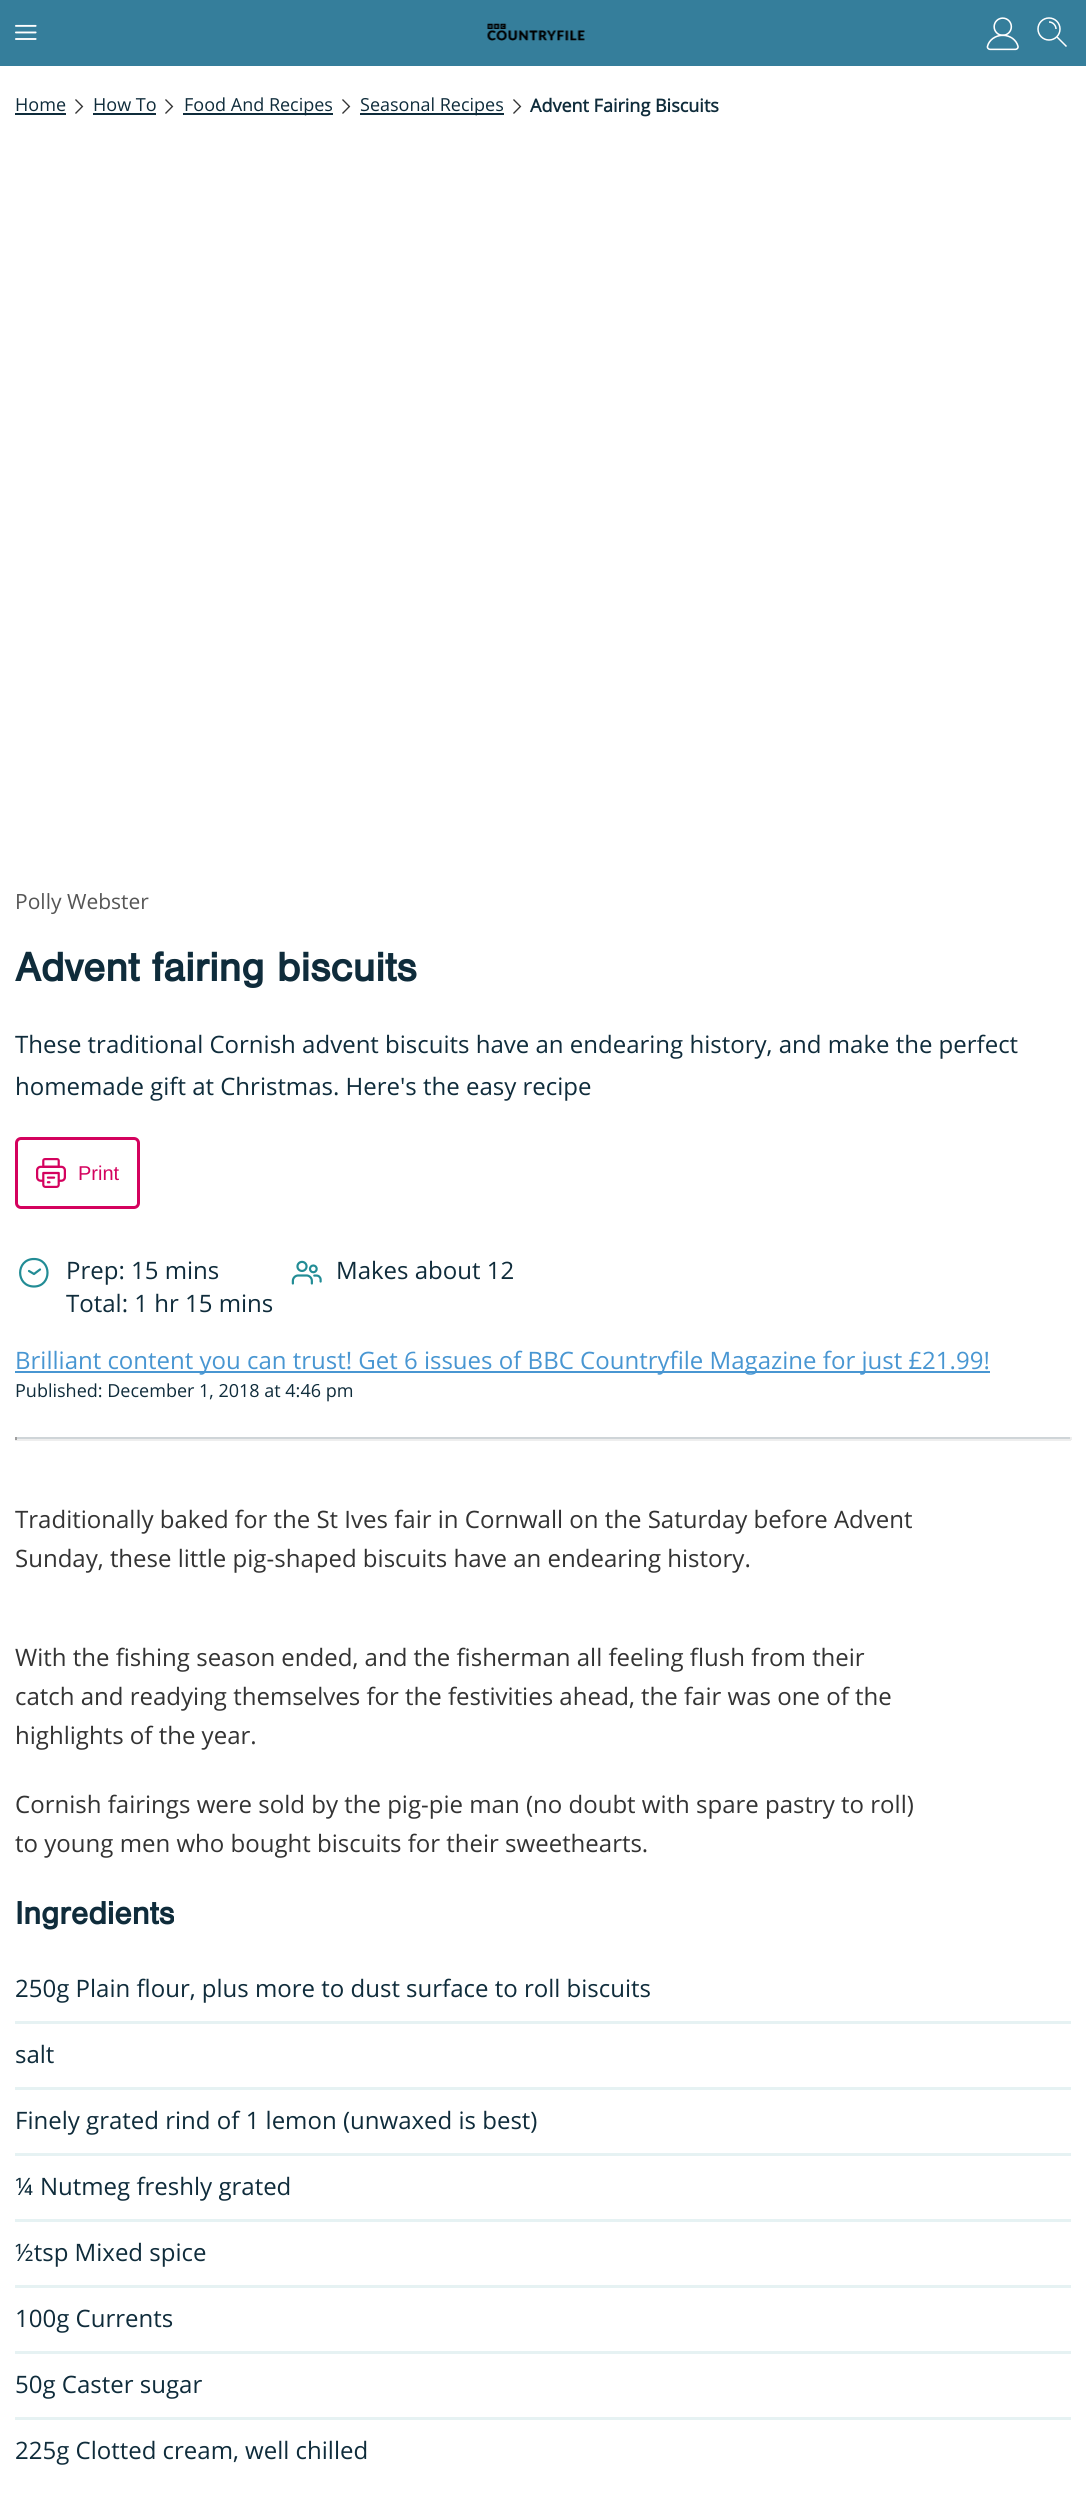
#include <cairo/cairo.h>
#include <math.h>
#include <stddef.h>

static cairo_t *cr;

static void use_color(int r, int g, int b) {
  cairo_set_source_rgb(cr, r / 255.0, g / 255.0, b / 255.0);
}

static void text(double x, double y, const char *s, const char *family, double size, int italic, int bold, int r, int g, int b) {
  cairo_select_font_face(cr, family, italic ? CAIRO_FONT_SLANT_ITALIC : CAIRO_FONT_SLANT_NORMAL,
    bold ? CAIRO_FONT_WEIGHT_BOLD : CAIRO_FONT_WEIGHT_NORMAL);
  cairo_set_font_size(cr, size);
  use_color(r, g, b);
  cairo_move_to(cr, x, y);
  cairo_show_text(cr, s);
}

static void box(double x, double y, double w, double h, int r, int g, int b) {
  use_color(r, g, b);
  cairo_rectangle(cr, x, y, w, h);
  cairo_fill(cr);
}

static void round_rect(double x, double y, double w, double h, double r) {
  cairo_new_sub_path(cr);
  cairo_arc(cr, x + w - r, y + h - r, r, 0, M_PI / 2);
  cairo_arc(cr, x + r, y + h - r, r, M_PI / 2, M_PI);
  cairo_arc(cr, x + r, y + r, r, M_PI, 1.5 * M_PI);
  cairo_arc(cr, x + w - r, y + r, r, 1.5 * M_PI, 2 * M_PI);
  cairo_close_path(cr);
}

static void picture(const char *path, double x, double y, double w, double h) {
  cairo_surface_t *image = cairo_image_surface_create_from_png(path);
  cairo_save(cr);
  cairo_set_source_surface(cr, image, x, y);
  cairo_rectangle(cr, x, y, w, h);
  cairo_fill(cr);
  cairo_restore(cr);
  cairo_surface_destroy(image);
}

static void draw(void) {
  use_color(255, 255, 255);
  cairo_paint(cr);
  box(0, 0, 1086, 66, 53, 126, 155);
  picture("img_01.png", 15, 24, 22, 16);
  picture("img_02.png", 487, 23, 98, 18);
  picture("img_03.png", 986, 17, 33, 34);
  cairo_arc(cr, 1049, 29, 11, 0, 2 * M_PI);
  use_color(255, 255, 255);
  cairo_set_line_width(cr, 1.5);
  cairo_stroke(cr);
  cairo_new_path(cr);
  cairo_move_to(cr, 1056, 29);
  cairo_curve_to(cr, 1056, 25.5, 1053, 22, 1049, 22);
  cairo_stroke(cr);
  cairo_new_path(cr);
  cairo_move_to(cr, 1066.5, 46.5);
  cairo_line_to(cr, 1057, 37);
  cairo_set_line_join(cr, CAIRO_LINE_JOIN_ROUND);
  cairo_stroke(cr);
  box(15, 113, 51, 2, 15, 44, 59);
  picture("img_04.png", 75, 99, 9, 15);
  box(93, 113, 63, 2, 15, 44, 59);
  picture("img_04.png", 165, 99, 9, 15);
  box(183, 113, 150, 2, 15, 44, 59);
  picture("img_04.png", 342, 99, 9, 15);
  box(360, 113, 144, 2, 15, 44, 59);
  picture("img_04.png", 513, 99, 9, 15);
  round_rect(16.5, 1138.5, 122, 69, 4.5);
  use_color(212, 2, 94);
  cairo_set_line_width(cr, 3);
  cairo_set_line_join(cr, CAIRO_LINE_JOIN_MITER);
  cairo_stroke(cr);
  picture("img_05.png", 36, 1158, 30, 30);
  cairo_new_path(cr);
  cairo_move_to(cr, 34, 1286.5);
  cairo_curve_to(cr, 52, 1286.5, 52, 1259, 34, 1259);
  cairo_curve_to(cr, 15.5, 1259, 15.5, 1286.5, 34, 1286.5);
  cairo_close_path(cr);
  cairo_move_to(cr, 34, 1274);
  cairo_line_to(cr, 29, 1271);
  cairo_move_to(cr, 34, 1274);
  cairo_line_to(cr, 40, 1269.5);
  use_color(34, 140, 149);
  cairo_set_line_width(cr, 2.2);
  cairo_set_line_cap(cr, CAIRO_LINE_CAP_ROUND);
  cairo_set_line_join(cr, CAIRO_LINE_JOIN_ROUND);
  cairo_stroke(cr);
  picture("img_06.png", 291, 1260, 31, 25);
  box(15, 1371, 975, 2, 72, 150, 210);
  box(15, 1437, 1056, 2, 207, 213, 216);
  box(1070, 1437, 2, 3, 238, 238, 238);
  box(15, 1439, 1056, 2, 238, 238, 238);
  box(15, 1437, 2, 3, 159, 159, 159);
  box(15, 2021, 1056, 3, 230, 242, 243);
  box(15, 2087, 1056, 3, 230, 242, 243);
  box(15, 2153, 1056, 3, 230, 242, 243);
  box(15, 2219, 1056, 3, 230, 242, 243);
  box(15, 2285, 1056, 3, 230, 242, 243);
  box(15, 2351, 1056, 3, 230, 242, 243);
  box(15, 2417, 1056, 3, 230, 242, 243);
  text(15, 111, "Home", "Open Sans", 18, 0, 0, 15, 44, 59);
  text(93, 111, "How To", "Open Sans", 18, 0, 0, 15, 44, 59);
  text(184, 111, "Food And Recipes", "Open Sans", 18, 0, 0, 15, 44, 59);
  text(360, 111, "Seasonal Recipes", "Open Sans", 18, 0, 0, 15, 44, 59);
  text(530, 112, "Advent Fairing Biscuits", "Open Sans", 18, 0, 1, 15, 44, 59);
  text(15, 909, "Polly Webster", "Open Sans", 21, 0, 0, 85, 85, 85);
  text(15, 981, "Advent fairing biscuits", "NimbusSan", 42, 0, 1, 15, 44, 59);
  text(15, 1053, "These traditional Cornish advent biscuits have an endearing history, and make the perfect", "Open Sans", 24, 0, 0, 15, 44, 59);
  text(15, 1095, "homemade gift at Christmas. Here's the easy recipe", "Open Sans", 24, 0, 0, 15, 44, 59);
  text(78, 1180, "Print", "Liberation Sans", 20, 0, 0, 212, 2, 94);
  text(66, 1279, "Prep: 15 mins", "Open Sans", 24, 0, 0, 15, 44, 59);
  text(66, 1312, "Total: 1 hr 15 mins", "Open Sans", 24, 0, 0, 15, 44, 59);
  text(336, 1279, "Makes about 12", "Open Sans", 24, 0, 0, 15, 44, 59);
  text(15, 1369, "Brilliant content you can trust! Get 6 issues of BBC Countryfile Magazine for just £21.99!", "Open Sans", 24, 0, 0, 72, 150, 210);
  text(15, 1397, "Published: December 1, 2018 at 4:46 pm", "Open Sans", 18, 0, 0, 15, 44, 59);
  text(15, 1528, "Traditionally baked for the St Ives fair in Cornwall on the Saturday before Advent", "Open Sans", 24, 0, 0, 51, 51, 51);
  text(15, 1567, "Sunday, these little pig-shaped biscuits have an endearing history.", "Open Sans", 24, 0, 0, 51, 51, 51);
  text(15, 1666, "With the fishing season ended, and the fisherman all feeling flush from their", "Open Sans", 24, 0, 0, 51, 51, 51);
  text(15, 1705, "catch and readying themselves for the festivities ahead, the fair was one of the", "Open Sans", 24, 0, 0, 51, 51, 51);
  text(15, 1744, "highlights of the year.", "Open Sans", 24, 0, 0, 51, 51, 51);
  text(15, 1813, "Cornish fairings were sold by the pig-pie man (no doubt with spare pastry to roll)", "Open Sans", 24, 0, 0, 51, 51, 51);
  text(15, 1852, "to young men who bought biscuits for their sweethearts.", "Open Sans", 24, 0, 0, 51, 51, 51);
  text(15, 1924, "Ingredients", "NimbusSan", 33, 0, 1, 15, 44, 59);
  text(15, 1997, "250g Plain flour, plus more to dust surface to roll biscuits", "Open Sans", 24, 0, 0, 15, 44, 59);
  text(15, 2063, "salt", "Open Sans", 24, 0, 0, 15, 44, 59);
  text(15, 2129, "Finely grated rind of 1 lemon (unwaxed is best)", "Open Sans", 24, 0, 0, 15, 44, 59);
  text(15, 2195, "¼ Nutmeg freshly grated", "Open Sans", 24, 0, 0, 15, 44, 59);
  text(15, 2261, "½tsp Mixed spice", "Open Sans", 24, 0, 0, 15, 44, 59);
  text(15, 2327, "100g Currents", "Open Sans", 24, 0, 0, 15, 44, 59);
  text(15, 2393, "50g Caster sugar", "Open Sans", 24, 0, 0, 15, 44, 59);
  text(15, 2459, "225g Clotted cream, well chilled", "Open Sans", 24, 0, 0, 15, 44, 59);
}

int main(void) {
  cairo_surface_t *surface = cairo_image_surface_create(CAIRO_FORMAT_RGB24, 1086, 2516);
  cr = cairo_create(surface);
  cairo_font_options_t *options = cairo_font_options_create();
  cairo_font_options_set_hint_metrics(options, CAIRO_HINT_METRICS_OFF);
  cairo_font_options_set_hint_style(options, CAIRO_HINT_STYLE_NONE);
  cairo_set_font_options(cr, options);
  cairo_set_miter_limit(cr, 4);
  draw();
  cairo_surface_write_to_png(surface, "out.png");
  cairo_font_options_destroy(options);
  cairo_destroy(cr);
  cairo_surface_destroy(surface);
  return 0;
}
